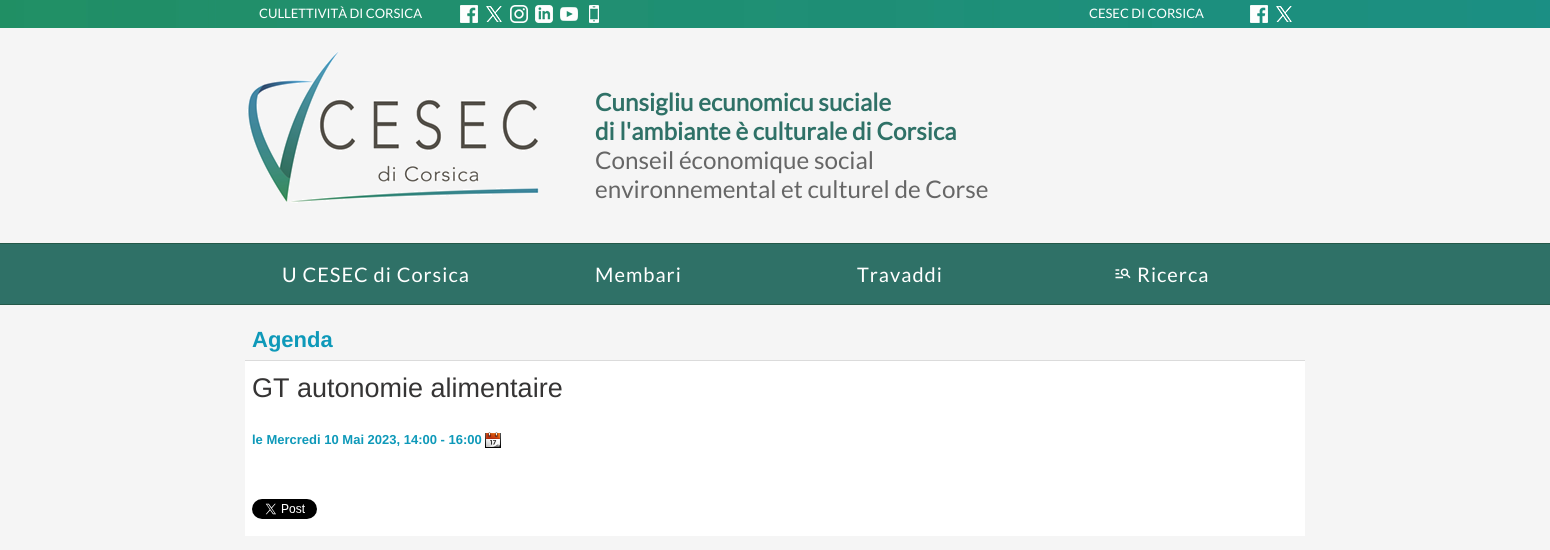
#include <cairo/cairo.h>
#include <math.h>
#include <stddef.h>

static cairo_t *cr;

static void use_color(int r, int g, int b) {
  cairo_set_source_rgb(cr, r / 255.0, g / 255.0, b / 255.0);
}

static void text(double x, double y, const char *s, const char *family, double size, int italic, int bold, int r, int g, int b) {
  cairo_select_font_face(cr, family, italic ? CAIRO_FONT_SLANT_ITALIC : CAIRO_FONT_SLANT_NORMAL,
    bold ? CAIRO_FONT_WEIGHT_BOLD : CAIRO_FONT_WEIGHT_NORMAL);
  cairo_set_font_size(cr, size);
  use_color(r, g, b);
  cairo_move_to(cr, x, y);
  cairo_show_text(cr, s);
}

static void spaced_text(double x, double y, const char *s, double letter, double word) {
  cairo_move_to(cr, x, y);
  while (*s) {
    char ch[5] = {0};
    int n = 0;
    do ch[n++] = *s++; while ((*s & 0xC0) == 0x80);
    cairo_show_text(cr, ch);
    cairo_rel_move_to(cr, letter + word * (*ch == ' '), 0);
  }
}

static void box(double x, double y, double w, double h, int r, int g, int b) {
  use_color(r, g, b);
  cairo_rectangle(cr, x, y, w, h);
  cairo_fill(cr);
}

static void picture(const char *path, double x, double y, double w, double h) {
  cairo_surface_t *image = cairo_image_surface_create_from_png(path);
  cairo_save(cr);
  cairo_set_source_surface(cr, image, x, y);
  cairo_rectangle(cr, x, y, w, h);
  cairo_fill(cr);
  cairo_restore(cr);
  cairo_surface_destroy(image);
}

static void draw(void) {
  use_color(245, 245, 245);
  cairo_paint(cr);
  picture("img_01.png", 0, 0, 1550, 28);
  picture("img_02.png", 460, 5, 18, 18);
  picture("img_03.png", 486, 6, 16, 16);
  picture("img_04.png", 510, 5, 18, 18);
  picture("img_05.png", 535, 5, 18, 18);
  picture("img_06.png", 560, 7, 18, 14);
  picture("img_07.png", 589, 5, 10, 18);
  picture("img_08.png", 1250, 5, 18, 18);
  picture("img_09.png", 1276, 6, 16, 16);
  picture("img_10.png", 247, 51, 292, 152);
  box(0, 243, 1550, 1, 36, 89, 73);
  box(0, 304, 1550, 1, 36, 89, 73);
  box(0, 244, 1550, 60, 47, 113, 103);
  picture("img_11.png", 1115, 268, 16, 11);
  box(245, 360, 1060, 1, 219, 219, 219);
  box(245, 361, 1060, 175, 255, 255, 255);
  picture("img_12.png", 485, 432, 16, 16);
  picture("img_13.png", 252, 499, 65, 20);
  text(259, 18, "CULLETTIVITÀ DI CORSICA", "Lato", 13, 0, 0, 255, 255, 255);
  text(1089, 18, "CESEC DI CORSICA", "Lato", 13, 0, 0, 255, 255, 255);
  text(595, 111, "Cunsigliu ecunomicu suciale", "Lato", 24.25, 0, 1, 47, 113, 103);
  text(595, 140, "di l'ambiante è culturale di Corsica", "Lato", 24.25, 0, 1, 47, 113, 103);
  text(595, 169, "Conseil économique social", "Lato", 24.25, 0, 0, 102, 102, 102);
  text(595, 198, "environnemental et culturel de Corse", "Lato", 24.25, 0, 0, 102, 102, 102);
  cairo_set_font_size(cr, 20);
  use_color(255, 255, 255);
  spaced_text(282, 282, "U CESEC di Corsica", 1, 0);
  spaced_text(595, 282, "Membari", 1, 0);
  spaced_text(857, 282, "Travaddi", 1, 0);
  spaced_text(1137, 282, "Ricerca", 1, 0);
  text(252, 347, "Agenda", "Liberation Sans", 22, 0, 1, 14, 153, 185);
  text(252, 397, "GT autonomie alimentaire", "Liberation Sans", 27, 0, 0, 53, 52, 52);
  text(252, 444, "le Mercredi 10 Mai 2023, 14:00 - 16:00", "Liberation Sans", 13, 0, 1, 14, 153, 185);
}

int main(void) {
  cairo_surface_t *surface = cairo_image_surface_create(CAIRO_FORMAT_RGB24, 1550, 550);
  cr = cairo_create(surface);
  cairo_font_options_t *options = cairo_font_options_create();
  cairo_font_options_set_hint_metrics(options, CAIRO_HINT_METRICS_OFF);
  cairo_font_options_set_hint_style(options, CAIRO_HINT_STYLE_NONE);
  cairo_set_font_options(cr, options);
  cairo_set_miter_limit(cr, 4);
  draw();
  cairo_surface_write_to_png(surface, "out.png");
  cairo_font_options_destroy(options);
  cairo_destroy(cr);
  cairo_surface_destroy(surface);
  return 0;
}
